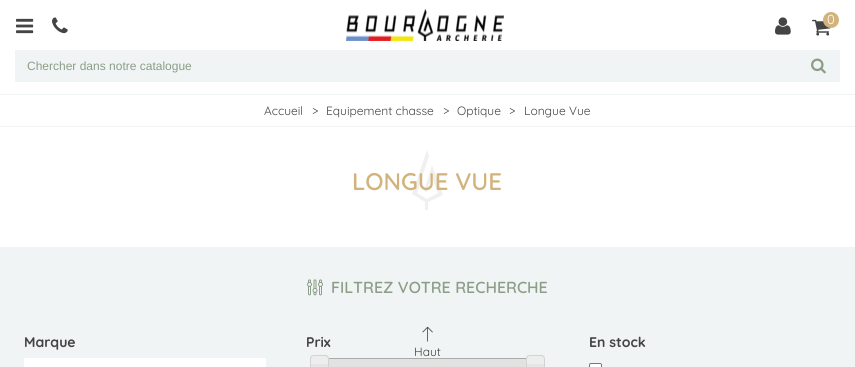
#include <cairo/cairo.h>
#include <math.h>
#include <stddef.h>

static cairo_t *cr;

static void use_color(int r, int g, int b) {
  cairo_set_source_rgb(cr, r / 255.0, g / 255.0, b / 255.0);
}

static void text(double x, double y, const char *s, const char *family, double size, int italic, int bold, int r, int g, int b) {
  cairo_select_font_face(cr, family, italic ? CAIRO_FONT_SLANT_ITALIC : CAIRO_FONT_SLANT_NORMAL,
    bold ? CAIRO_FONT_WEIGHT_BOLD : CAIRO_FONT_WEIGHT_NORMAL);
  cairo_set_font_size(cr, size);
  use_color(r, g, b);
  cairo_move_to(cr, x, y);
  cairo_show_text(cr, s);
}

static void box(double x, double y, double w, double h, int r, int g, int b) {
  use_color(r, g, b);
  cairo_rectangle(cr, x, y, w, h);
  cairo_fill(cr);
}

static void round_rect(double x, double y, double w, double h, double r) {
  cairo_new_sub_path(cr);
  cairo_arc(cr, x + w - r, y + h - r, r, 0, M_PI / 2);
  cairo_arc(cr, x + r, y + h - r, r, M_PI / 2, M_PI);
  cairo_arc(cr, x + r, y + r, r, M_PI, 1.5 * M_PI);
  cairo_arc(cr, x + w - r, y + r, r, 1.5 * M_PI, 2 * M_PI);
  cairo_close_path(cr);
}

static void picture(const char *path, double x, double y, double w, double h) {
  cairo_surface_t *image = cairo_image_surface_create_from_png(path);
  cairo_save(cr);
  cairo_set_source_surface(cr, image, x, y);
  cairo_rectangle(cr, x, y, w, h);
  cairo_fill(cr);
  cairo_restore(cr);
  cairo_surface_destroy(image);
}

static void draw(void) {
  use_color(255, 255, 255);
  cairo_paint(cr);
  box(0, 94, 855, 1, 241, 244, 244);
  picture("img_01.png", 16, 18, 18, 16);
  picture("img_02.png", 52, 17, 16, 17);
  picture("img_03.png", 346, 9, 158, 32);
  picture("img_04.png", 775, 17, 16, 18);
  picture("img_05.png", 812, 19, 19, 17);
  use_color(211, 179, 124);
  cairo_arc(cr, 831, 20, 8, 0, 2 * M_PI);
  cairo_fill(cr);
  box(15, 50, 825, 32, 241, 244, 244);
  picture("img_06.png", 811, 58, 15, 16);
  box(0, 126, 855, 1, 243, 243, 243);
  use_color(240, 240, 240);
  cairo_new_path(cr);
  cairo_move_to(cr, 427, 150);
  cairo_line_to(cr, 412, 194);
  cairo_line_to(cr, 425, 202);
  cairo_line_to(cr, 425, 210);
  cairo_line_to(cr, 428, 210);
  cairo_line_to(cr, 428, 202);
  cairo_line_to(cr, 443, 195);
  cairo_line_to(cr, 432, 165);
  cairo_line_to(cr, 424, 191);
  cairo_line_to(cr, 427, 192);
  cairo_line_to(cr, 432, 177);
  cairo_line_to(cr, 438, 193);
  cairo_line_to(cr, 427, 199);
  cairo_line_to(cr, 417, 193);
  cairo_line_to(cr, 429, 156);
  cairo_close_path(cr);
  cairo_fill(cr);
  box(0, 247, 855, 120, 241, 244, 244);
  picture("img_07.png", 307, 279, 16, 17);
  box(24, 358, 242, 9, 255, 255, 255);
  cairo_rectangle(cr, 319.5, 358.5, 216, 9);
  use_color(170, 170, 170);
  cairo_set_line_width(cr, 1);
  cairo_stroke(cr);
  box(311, 364, 17, 3, 230, 230, 230);
  box(310, 355, 19, 9, 237, 237, 237);
  round_rect(310.5, 355.5, 18, 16, 3.5);
  use_color(211, 211, 211);
  cairo_stroke(cr);
  box(329, 359, 197, 8, 226, 226, 226);
  box(527, 364, 17, 3, 230, 230, 230);
  box(526, 355, 19, 9, 237, 237, 237);
  round_rect(526.5, 355.5, 18, 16, 3.5);
  use_color(211, 211, 211);
  cairo_stroke(cr);
  use_color(255, 255, 255);
  round_rect(589.5, 363.5, 12, 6, 1.5);
  cairo_fill_preserve(cr);
  use_color(118, 118, 118);
  cairo_stroke(cr);
  picture("img_08.png", 422, 326, 11, 16);
  text(827, 24, "0", "Quicksand", 13, 0, 0, 255, 255, 255);
  text(27, 70, "Chercher dans notre catalogue", "Liberation Sans", 12, 0, 0, 140, 157, 136);
  text(264, 115, "Accueil", "Quicksand", 12, 0, 0, 68, 68, 68);
  text(312, 115, ">", "Quicksand", 12, 0, 0, 68, 68, 68);
  text(326, 115, "Equipement chasse", "Quicksand", 12, 0, 0, 68, 68, 68);
  text(443, 115, ">", "Quicksand", 12, 0, 0, 68, 68, 68);
  text(457, 115, "Optique", "Quicksand", 12, 0, 0, 68, 68, 68);
  text(509, 115, ">", "Quicksand", 12, 0, 0, 68, 68, 68);
  text(524, 115, "Longue Vue", "Quicksand", 12, 0, 0, 68, 68, 68);
  text(352, 190, "LONGUE VUE", "Quicksand SemiBold", 24, 0, 0, 211, 179, 124);
  text(331, 293, "FILTREZ VOTRE RECHERCHE", "Quicksand SemiBold", 16, 0, 0, 140, 157, 136);
  text(24, 347, "Marque", "Quicksand", 14, 0, 1, 68, 68, 68);
  text(306, 347, "Prix", "Quicksand", 14, 0, 1, 68, 68, 68);
  text(589, 347, "En stock", "Quicksand", 14, 0, 1, 68, 68, 68);
  text(414, 356, "Haut", "Quicksand", 12, 0, 0, 68, 68, 68);
}

int main(void) {
  cairo_surface_t *surface = cairo_image_surface_create(CAIRO_FORMAT_RGB24, 855, 367);
  cr = cairo_create(surface);
  cairo_font_options_t *options = cairo_font_options_create();
  cairo_font_options_set_hint_metrics(options, CAIRO_HINT_METRICS_OFF);
  cairo_font_options_set_hint_style(options, CAIRO_HINT_STYLE_NONE);
  cairo_set_font_options(cr, options);
  cairo_set_miter_limit(cr, 4);
  draw();
  cairo_surface_write_to_png(surface, "out.png");
  cairo_font_options_destroy(options);
  cairo_destroy(cr);
  cairo_surface_destroy(surface);
  return 0;
}
